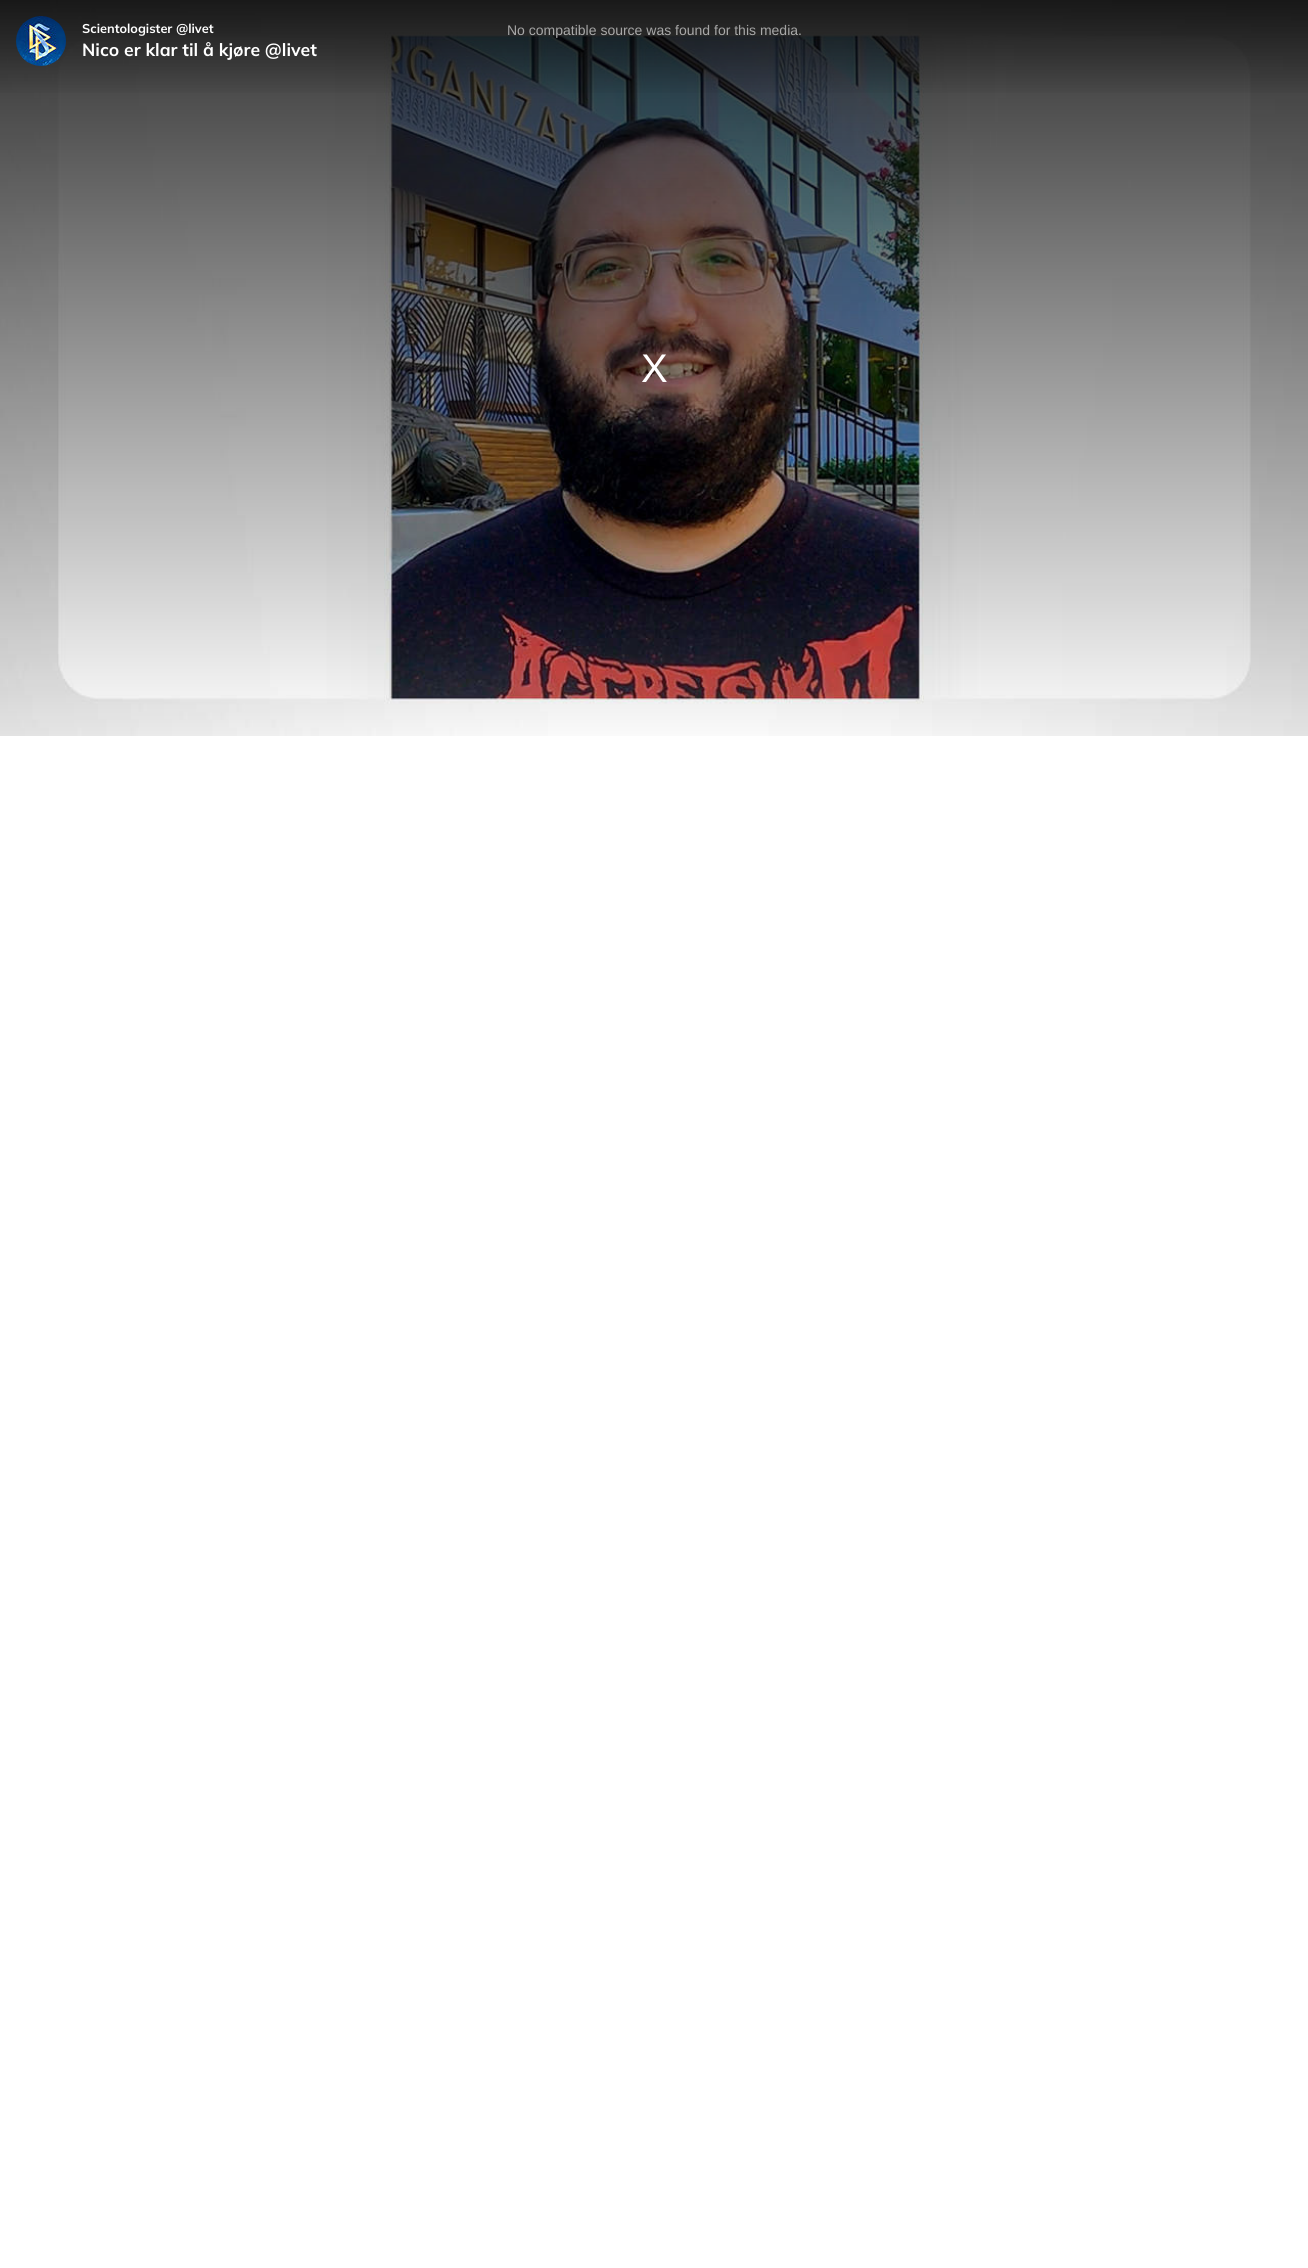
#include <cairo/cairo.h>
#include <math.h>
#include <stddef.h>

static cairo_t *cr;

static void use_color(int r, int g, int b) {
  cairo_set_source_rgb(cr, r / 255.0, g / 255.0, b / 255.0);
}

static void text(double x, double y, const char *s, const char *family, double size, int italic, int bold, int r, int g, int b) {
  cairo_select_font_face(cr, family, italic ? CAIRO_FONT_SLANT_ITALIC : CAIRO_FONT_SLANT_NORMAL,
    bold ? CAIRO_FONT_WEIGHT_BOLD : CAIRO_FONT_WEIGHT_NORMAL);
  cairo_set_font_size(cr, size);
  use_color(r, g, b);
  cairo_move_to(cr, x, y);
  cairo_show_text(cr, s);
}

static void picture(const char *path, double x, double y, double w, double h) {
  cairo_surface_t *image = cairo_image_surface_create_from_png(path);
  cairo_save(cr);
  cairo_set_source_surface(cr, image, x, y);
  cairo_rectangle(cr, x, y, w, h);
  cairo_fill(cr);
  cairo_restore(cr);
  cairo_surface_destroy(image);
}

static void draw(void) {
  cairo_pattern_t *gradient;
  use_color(255, 255, 255);
  cairo_paint(cr);
  picture("img_01.png", 0, 0, 1308, 736);
  text(507, 35, "No compatible source was found for this media.", "Liberation Sans", 14, 0, 0, 255, 255, 255);
  gradient = cairo_pattern_create_linear(654, 0, 654, 100);
  cairo_pattern_add_color_stop_rgba(gradient, 0, 0, 0, 0, 0.5);
  cairo_pattern_add_color_stop_rgba(gradient, 1, 0, 0, 0, 0);
  cairo_set_source(cr, gradient);
  cairo_pattern_destroy(gradient);
  cairo_rectangle(cr, 0, 0, 1308, 93);
  cairo_fill(cr);
  picture("img_02.png", 16, 16, 50, 50);
  text(82, 56, "Nico er klar til å kjøre @livet", "Mulish", 17.6, 0, 1, 255, 255, 255);
  text(82, 33, "Scientologister @livet", "Mulish", 12.75, 0, 1, 255, 255, 255);
  text(641, 382, "X", "Liberation Sans", 40, 0, 0, 255, 255, 255);
}

int main(void) {
  cairo_surface_t *surface = cairo_image_surface_create(CAIRO_FORMAT_RGB24, 1308, 2268);
  cr = cairo_create(surface);
  cairo_font_options_t *options = cairo_font_options_create();
  cairo_font_options_set_hint_metrics(options, CAIRO_HINT_METRICS_OFF);
  cairo_font_options_set_hint_style(options, CAIRO_HINT_STYLE_NONE);
  cairo_set_font_options(cr, options);
  cairo_set_miter_limit(cr, 4);
  draw();
  cairo_surface_write_to_png(surface, "out.png");
  cairo_font_options_destroy(options);
  cairo_destroy(cr);
  cairo_surface_destroy(surface);
  return 0;
}
